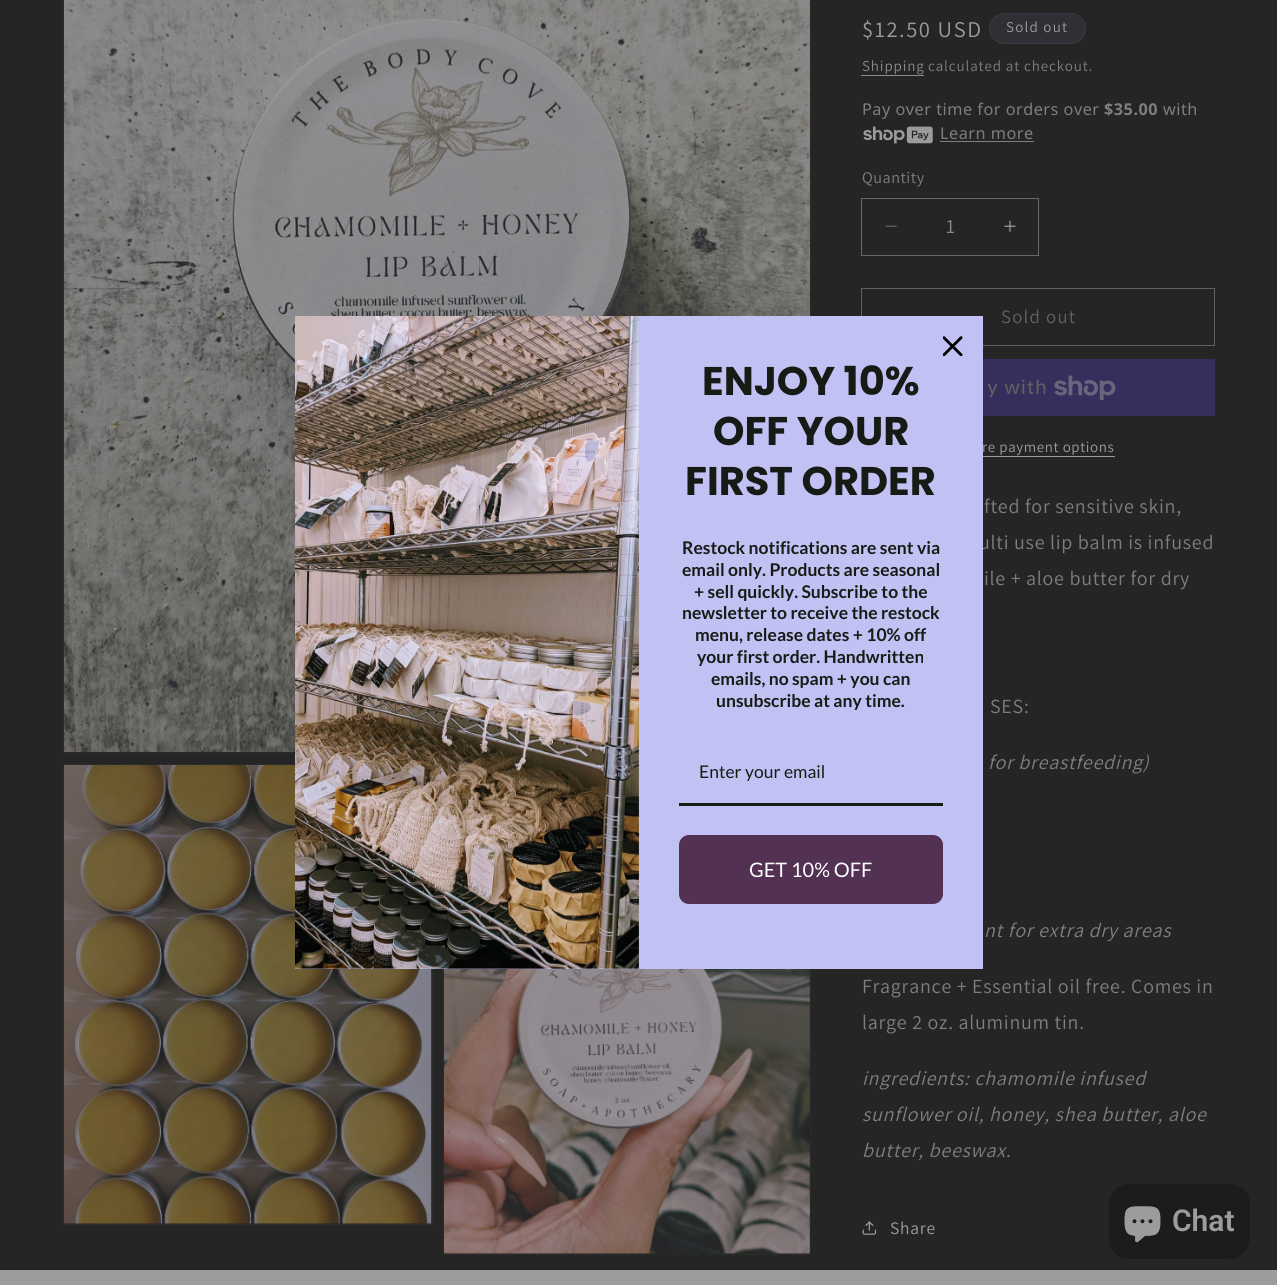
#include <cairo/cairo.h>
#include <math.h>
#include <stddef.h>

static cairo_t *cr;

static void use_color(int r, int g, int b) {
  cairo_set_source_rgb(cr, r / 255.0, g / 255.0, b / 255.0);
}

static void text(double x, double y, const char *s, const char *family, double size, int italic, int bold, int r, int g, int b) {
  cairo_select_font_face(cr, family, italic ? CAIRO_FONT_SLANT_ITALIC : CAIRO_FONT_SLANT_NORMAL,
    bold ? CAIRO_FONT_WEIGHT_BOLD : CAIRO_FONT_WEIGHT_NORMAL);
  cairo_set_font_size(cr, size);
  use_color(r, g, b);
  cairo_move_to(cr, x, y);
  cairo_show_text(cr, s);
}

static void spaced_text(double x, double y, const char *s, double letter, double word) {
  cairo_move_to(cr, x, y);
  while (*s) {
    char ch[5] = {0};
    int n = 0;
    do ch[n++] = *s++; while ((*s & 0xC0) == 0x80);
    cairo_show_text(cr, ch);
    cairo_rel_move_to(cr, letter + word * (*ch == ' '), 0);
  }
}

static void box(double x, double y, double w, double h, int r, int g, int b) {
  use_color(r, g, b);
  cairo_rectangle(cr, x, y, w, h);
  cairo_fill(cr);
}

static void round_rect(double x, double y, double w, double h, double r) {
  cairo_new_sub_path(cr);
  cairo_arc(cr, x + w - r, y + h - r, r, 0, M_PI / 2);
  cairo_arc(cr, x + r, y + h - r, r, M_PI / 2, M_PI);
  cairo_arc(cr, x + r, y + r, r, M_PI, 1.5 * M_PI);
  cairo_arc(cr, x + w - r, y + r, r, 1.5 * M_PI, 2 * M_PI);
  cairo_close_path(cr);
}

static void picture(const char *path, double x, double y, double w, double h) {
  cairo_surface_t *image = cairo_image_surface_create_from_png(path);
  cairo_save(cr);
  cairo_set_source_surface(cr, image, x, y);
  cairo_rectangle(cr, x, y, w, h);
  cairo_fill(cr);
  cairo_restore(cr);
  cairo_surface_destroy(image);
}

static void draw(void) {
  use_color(156, 156, 156);
  cairo_paint(cr);
  box(0, 0, 1277, 1270, 37, 37, 37);
  cairo_rectangle(cr, 63.5, -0.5, 747, 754);
  use_color(43, 43, 43);
  cairo_set_line_width(cr, 1);
  cairo_stroke(cr);
  picture("img_03.png", 64, 0, 746, 752);
  cairo_rectangle(cr, 63.5, 764.5, 369, 460);
  cairo_stroke(cr);
  picture("img_04.png", 64, 765, 368, 459);
  cairo_rectangle(cr, 443.5, 764.5, 367, 490);
  cairo_stroke(cr);
  picture("img_05.png", 444, 969, 366, 285);
  use_color(46, 48, 54);
  round_rect(989, 13, 97, 31, 15.5);
  cairo_fill(cr);
  round_rect(989.5, 13.5, 96, 30, 15);
  cairo_set_source_rgba(cr, 0.612, 0.612, 0.612, 0.1);
  cairo_stroke(cr);
  box(861, 75, 63, 1, 138, 138, 138);
  picture("img_06.png", 863, 126, 70, 18);
  box(940, 141, 94, 1, 126, 126, 126);
  picture("img_07.png", 885, 225, 12, 2);
  picture("img_08.png", 1004, 220, 12, 12);
  cairo_rectangle(cr, 861.5, 198.5, 177, 57);
  use_color(102, 102, 102);
  cairo_stroke(cr);
  cairo_rectangle(cr, 861.5, 288.5, 353, 57);
  use_color(97, 97, 97);
  cairo_stroke(cr);
  box(983, 359, 232, 57, 54, 46, 92);
  picture("img_09.png", 1054, 375, 62, 25);
  box(983, 456, 132, 1, 156, 156, 156);
  picture("img_10.png", 862, 1221, 15, 14);
  use_color(28, 28, 28);
  round_rect(1109, 1184, 141, 75, 20);
  cairo_fill(cr);
  picture("img_11.png", 1124, 1206, 37, 37);
  cairo_select_font_face(cr, "Assistant", CAIRO_FONT_SLANT_NORMAL, CAIRO_FONT_WEIGHT_NORMAL);
  cairo_set_font_size(cr, 22.5);
  use_color(156, 156, 156);
  spaced_text(862, 37, "$12.50 USD", 1.6, 0);
  cairo_set_font_size(cr, 15);
  spaced_text(1006, 32, "Sold out", 1.25, 0);
  use_color(138, 138, 138);
  spaced_text(862, 71, "Shipping", 0.9, 0);
  use_color(126, 126, 126);
  spaced_text(928, 71, "calculated at checkout.", 0.9, 0);
  cairo_select_font_face(cr, "Noto Sans", CAIRO_FONT_SLANT_NORMAL, CAIRO_FONT_WEIGHT_NORMAL);
  cairo_set_font_size(cr, 16.25);
  spaced_text(862, 115, "Pay over time for orders over", 0.5, 0);
  cairo_select_font_face(cr, "Noto Sans", CAIRO_FONT_SLANT_NORMAL, CAIRO_FONT_WEIGHT_BOLD);
  spaced_text(1104, 115, "$35.00", 0.5, 0);
  cairo_select_font_face(cr, "Noto Sans", CAIRO_FONT_SLANT_NORMAL, CAIRO_FONT_WEIGHT_NORMAL);
  spaced_text(1163, 115, "with", 0.5, 0);
  spaced_text(940, 139, "Learn more", 0.5, 0);
  cairo_select_font_face(cr, "Assistant", CAIRO_FONT_SLANT_NORMAL, CAIRO_FONT_WEIGHT_NORMAL);
  spaced_text(862, 183, "Quantity", 0.5, 0);
  text(946, 233, "1", "Assistant", 20, 0, 0, 138, 138, 138);
  cairo_set_font_size(cr, 18.75);
  use_color(97, 97, 97);
  spaced_text(1001, 323, "Sold out", 1.25, 0);
  cairo_select_font_face(cr, "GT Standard", CAIRO_FONT_SLANT_NORMAL, CAIRO_FONT_WEIGHT_NORMAL);
  cairo_set_font_size(cr, 20);
  spaced_text(987, 394, "y with", 0.75, 0);
  cairo_select_font_face(cr, "Assistant", CAIRO_FONT_SLANT_NORMAL, CAIRO_FONT_WEIGHT_NORMAL);
  cairo_set_font_size(cr, 15);
  use_color(156, 156, 156);
  spaced_text(982, 452, "re payment options", 0.6, 0);
  cairo_set_font_size(cr, 20);
  use_color(126, 126, 126);
  spaced_text(984, 513, "fted for sensitive skin,", 0.75, 0);
  spaced_text(979, 549, "ulti use lip balm is infused", 0.75, 0);
  box(295, 316, 688, 653, 194, 193, 243);
  picture("img_01.png", 943, 336, 20, 20);
  use_color(82, 49, 83);
  round_rect(680.5, 836.5, 261, 66, 8.5);
  cairo_fill_preserve(cr);
  cairo_set_line_width(cr, 3);
  cairo_stroke(cr);
  text(749, 877, "GET 10% OFF", "Lato", 20, 0, 0, 255, 255, 255);
  text(699, 778, "Enter your email", "Lato", 17.5, 0, 0, 22, 28, 21);
  box(679, 803, 264, 3, 22, 28, 21);
  text(716, 707, "unsubscribe at any time.", "Lato", 17.5, 0, 1, 22, 28, 21);
  text(711, 685, "emails, no spam + you can", "Lato", 17.5, 0, 1, 22, 28, 21);
  text(697, 663, "your first order. Handwritten", "Lato", 17.5, 0, 1, 22, 28, 21);
  text(695, 641, "menu, release dates + 10% off", "Lato", 17.5, 0, 1, 22, 28, 21);
  text(682, 619, "newsletter to receive the restock", "Lato", 17.5, 0, 1, 22, 28, 21);
  text(694, 598, "+ sell quickly. Subscribe to the", "Lato", 17.5, 0, 1, 22, 28, 21);
  text(682, 576, "email only. Products are seasonal", "Lato", 17.5, 0, 1, 22, 28, 21);
  text(682, 554, "Restock notifications are sent via", "Lato", 17.5, 0, 1, 22, 28, 21);
  text(685, 495, "FIRST ORDER", "Poppins", 40, 0, 1, 22, 28, 21);
  text(713, 445, "OFF YOUR", "Poppins", 40, 0, 1, 22, 28, 21);
  text(702, 395, "ENJOY 10%", "Poppins", 40, 0, 1, 22, 28, 21);
  picture("img_02.png", 295, 316, 344, 653);
  cairo_select_font_face(cr, "Assistant", CAIRO_FONT_SLANT_NORMAL, CAIRO_FONT_WEIGHT_NORMAL);
  cairo_set_font_size(cr, 20);
  use_color(126, 126, 126);
  spaced_text(984, 585, "ile + aloe butter for dry", 0.75, 0);
  spaced_text(990, 713, "SES:", 0.75, 0);
  cairo_select_font_face(cr, "Assistant", CAIRO_FONT_SLANT_ITALIC, CAIRO_FONT_WEIGHT_NORMAL);
  spaced_text(988, 769, "for breastfeeding)", 0.75, 0);
  spaced_text(984, 937, "nt for extra dry areas", 0.75, 0);
  cairo_select_font_face(cr, "Assistant", CAIRO_FONT_SLANT_NORMAL, CAIRO_FONT_WEIGHT_NORMAL);
  spaced_text(862, 993, "Fragrance + Essential oil free. Comes in", 0.75, 0);
  spaced_text(862, 1029, "large 2 oz. aluminum tin.", 0.75, 0);
  cairo_select_font_face(cr, "Assistant", CAIRO_FONT_SLANT_ITALIC, CAIRO_FONT_WEIGHT_NORMAL);
  spaced_text(862, 1085, "ingredients: chamomile infused", 0.75, 0);
  spaced_text(862, 1121, "sunflower oil, honey, shea butter, aloe", 0.75, 0);
  spaced_text(862, 1157, "butter, beeswax.", 0.75, 0);
  cairo_select_font_face(cr, "Assistant", CAIRO_FONT_SLANT_NORMAL, CAIRO_FONT_WEIGHT_NORMAL);
  cairo_set_font_size(cr, 17.5);
  use_color(156, 156, 156);
  spaced_text(890, 1234, "Share", 0.75, 0);
  text(1172, 1231, "Chat", "Roboto SemiBold", 30, 0, 0, 156, 156, 156);
}

int main(void) {
  cairo_surface_t *surface = cairo_image_surface_create(CAIRO_FORMAT_RGB24, 1277, 1285);
  cr = cairo_create(surface);
  cairo_font_options_t *options = cairo_font_options_create();
  cairo_font_options_set_hint_metrics(options, CAIRO_HINT_METRICS_OFF);
  cairo_font_options_set_hint_style(options, CAIRO_HINT_STYLE_NONE);
  cairo_set_font_options(cr, options);
  cairo_set_miter_limit(cr, 4);
  draw();
  cairo_surface_write_to_png(surface, "out.png");
  cairo_font_options_destroy(options);
  cairo_destroy(cr);
  cairo_surface_destroy(surface);
  return 0;
}
